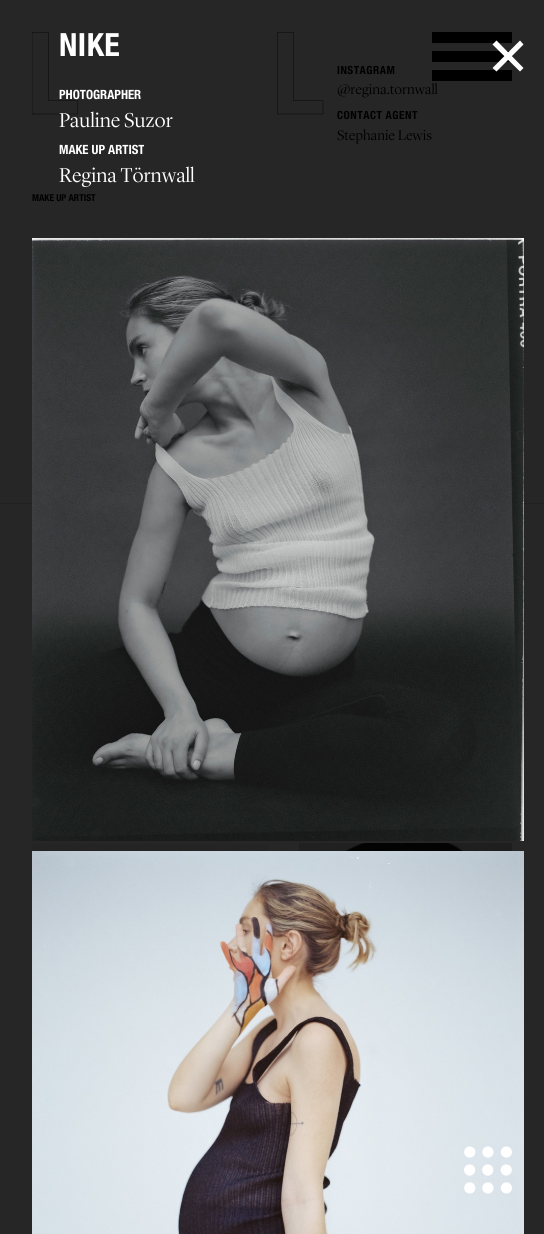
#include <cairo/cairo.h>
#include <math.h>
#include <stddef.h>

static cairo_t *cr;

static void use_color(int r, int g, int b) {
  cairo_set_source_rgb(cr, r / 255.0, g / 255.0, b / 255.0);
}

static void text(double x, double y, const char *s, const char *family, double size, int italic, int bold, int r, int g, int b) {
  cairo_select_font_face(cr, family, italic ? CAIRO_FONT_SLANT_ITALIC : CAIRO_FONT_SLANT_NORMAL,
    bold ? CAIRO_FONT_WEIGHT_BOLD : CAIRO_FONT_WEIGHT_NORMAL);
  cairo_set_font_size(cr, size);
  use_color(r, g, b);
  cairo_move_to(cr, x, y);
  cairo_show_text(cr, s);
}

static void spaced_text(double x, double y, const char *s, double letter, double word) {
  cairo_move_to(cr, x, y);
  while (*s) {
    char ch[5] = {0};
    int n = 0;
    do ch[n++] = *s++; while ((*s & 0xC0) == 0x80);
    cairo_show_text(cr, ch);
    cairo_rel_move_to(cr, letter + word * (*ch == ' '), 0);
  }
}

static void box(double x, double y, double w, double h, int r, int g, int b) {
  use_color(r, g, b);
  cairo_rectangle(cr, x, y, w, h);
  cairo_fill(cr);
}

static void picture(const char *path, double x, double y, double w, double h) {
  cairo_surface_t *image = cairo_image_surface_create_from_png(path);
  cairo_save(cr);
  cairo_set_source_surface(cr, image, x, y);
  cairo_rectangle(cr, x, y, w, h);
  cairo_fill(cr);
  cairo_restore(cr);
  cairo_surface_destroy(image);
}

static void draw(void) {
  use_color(38, 38, 38);
  cairo_paint(cr);
  box(432, 32, 80, 11, 0, 0, 0);
  box(432, 51, 80, 11, 0, 0, 0);
  box(432, 70, 80, 11, 0, 0, 0);
  use_color(255, 255, 255);
  cairo_set_fill_rule(cr, CAIRO_FILL_RULE_EVEN_ODD);
  cairo_new_path(cr);
  cairo_move_to(cr, 492.5, 68);
  cairo_line_to(cr, 520, 40.5);
  cairo_line_to(cr, 523.5, 44.5);
  cairo_line_to(cr, 496.5, 71.5);
  cairo_close_path(cr);
  cairo_fill(cr);
  cairo_new_path(cr);
  cairo_move_to(cr, 496.5, 40.5);
  cairo_line_to(cr, 523.5, 68);
  cairo_line_to(cr, 520, 71.5);
  cairo_line_to(cr, 492.5, 44.5);
  cairo_close_path(cr);
  cairo_fill(cr);
  box(0, 503, 544, 1, 33, 33, 33);
  picture("img_01.png", 32, 238, 492, 603);
  picture("img_02.png", 32, 851, 492, 383);
  picture("img_03.png", 464, 1146, 48, 48);
  cairo_save(cr);
  cairo_set_fill_rule(cr, CAIRO_FILL_RULE_WINDING);
  cairo_rectangle(cr, 32, 32, 480, 83);
  cairo_clip(cr);
  cairo_new_path(cr);
  cairo_move_to(cr, 77.5, 114);
  cairo_line_to(cr, 77.5, 100.5);
  cairo_line_to(cr, 48.5, 100.5);
  cairo_line_to(cr, 48.5, 32.5);
  cairo_line_to(cr, 32, 32.5);
  cairo_line_to(cr, 32, 114);
  cairo_close_path(cr);
  use_color(0, 0, 0);
  cairo_set_line_width(cr, 0.4);
  cairo_stroke(cr);
  cairo_restore(cr);
  cairo_new_path(cr);
  cairo_move_to(cr, 323, 114);
  cairo_line_to(cr, 323, 100.5);
  cairo_line_to(cr, 293.5, 100.5);
  cairo_line_to(cr, 293.5, 32.5);
  cairo_line_to(cr, 277.5, 32.5);
  cairo_line_to(cr, 277.5, 114);
  cairo_close_path(cr);
  use_color(0, 0, 0);
  cairo_set_line_width(cr, 0.4);
  cairo_stroke(cr);
  picture("img_04.png", 32, 844, 237, 7);
  picture("img_05.png", 299, 843, 213, 8);
  cairo_select_font_face(cr, "Helvetica Neue", CAIRO_FONT_SLANT_NORMAL, CAIRO_FONT_WEIGHT_BOLD);
  cairo_set_font_size(cr, 32);
  use_color(255, 255, 255);
  spaced_text(59, 56, "NIKE", 0.5, 0);
  text(59, 99, "PHOTOGRAPHER", "Helvetica Neue", 12.75, 0, 1, 255, 255, 255);
  text(59, 127, "Pauline Suzor", "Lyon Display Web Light", 20.75, 0, 0, 255, 255, 255);
  text(59, 154, "MAKE UP ARTIST", "Helvetica Neue", 12.75, 0, 1, 255, 255, 255);
  text(59, 182, "Regina Törnwall", "Lyon Display Web Light", 20.75, 0, 0, 255, 255, 255);
  cairo_select_font_face(cr, "Helvetica Neue", CAIRO_FONT_SLANT_NORMAL, CAIRO_FONT_WEIGHT_BOLD);
  cairo_set_font_size(cr, 11.25);
  use_color(0, 0, 0);
  spaced_text(337, 74, "INSTAGRAM", 0.5, 0);
  text(337, 94, "@regina.tornwall", "Lyon Display Web Light", 14.5, 0, 0, 0, 0, 0);
  cairo_select_font_face(cr, "Helvetica Neue", CAIRO_FONT_SLANT_NORMAL, CAIRO_FONT_WEIGHT_BOLD);
  cairo_set_font_size(cr, 11.25);
  spaced_text(337, 119, "CONTACT AGENT", 0.5, 0);
  text(337, 140, "Stephanie Lewis", "Lyon Display Web Light", 14.5, 0, 0, 0, 0, 0);
  text(32, 201, "MAKE UP ARTIST", "Helvetica Neue", 9.5, 0, 1, 0, 0, 0);
}

int main(void) {
  cairo_surface_t *surface = cairo_image_surface_create(CAIRO_FORMAT_RGB24, 544, 1234);
  cr = cairo_create(surface);
  cairo_font_options_t *options = cairo_font_options_create();
  cairo_font_options_set_hint_metrics(options, CAIRO_HINT_METRICS_OFF);
  cairo_font_options_set_hint_style(options, CAIRO_HINT_STYLE_NONE);
  cairo_set_font_options(cr, options);
  cairo_set_miter_limit(cr, 4);
  draw();
  cairo_surface_write_to_png(surface, "out.png");
  cairo_font_options_destroy(options);
  cairo_destroy(cr);
  cairo_surface_destroy(surface);
  return 0;
}
